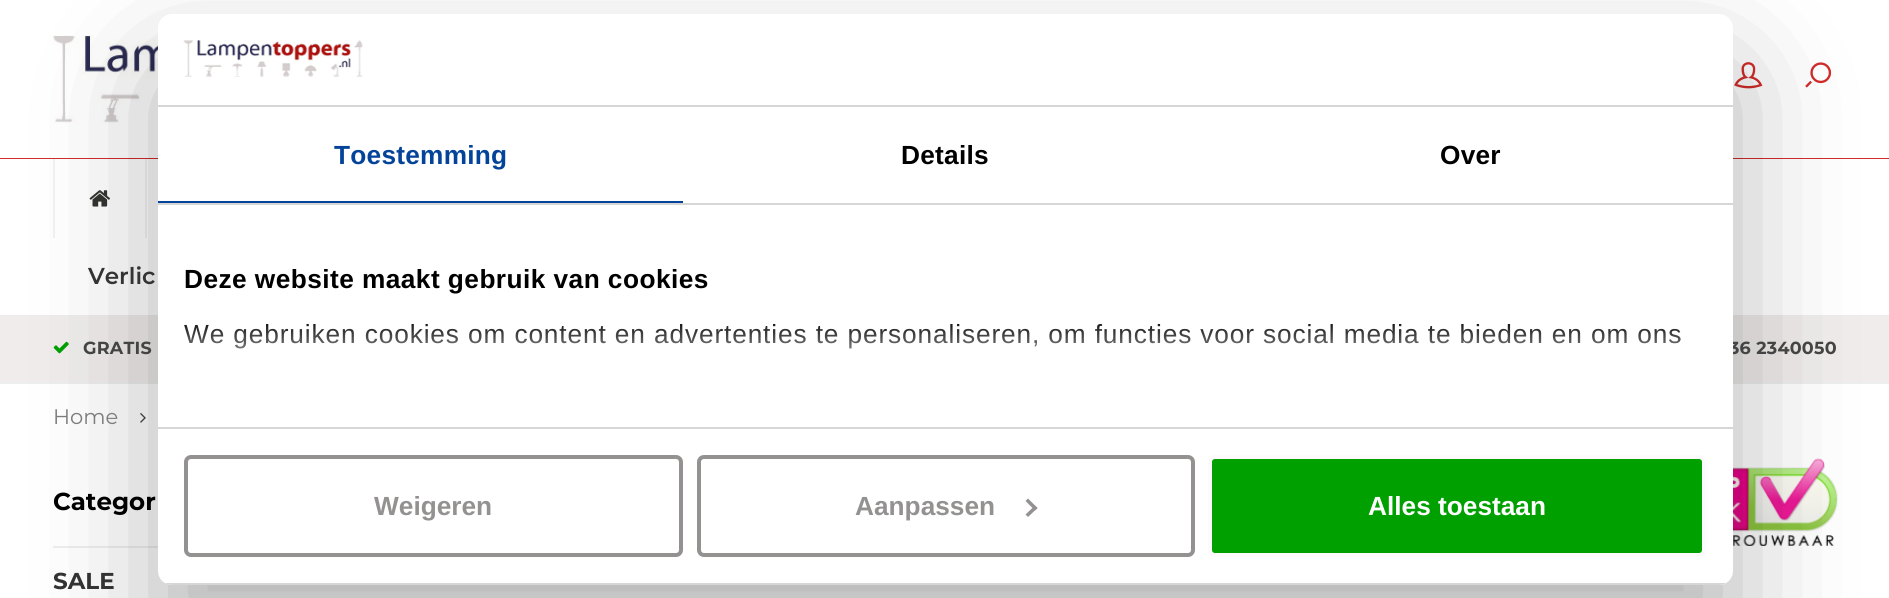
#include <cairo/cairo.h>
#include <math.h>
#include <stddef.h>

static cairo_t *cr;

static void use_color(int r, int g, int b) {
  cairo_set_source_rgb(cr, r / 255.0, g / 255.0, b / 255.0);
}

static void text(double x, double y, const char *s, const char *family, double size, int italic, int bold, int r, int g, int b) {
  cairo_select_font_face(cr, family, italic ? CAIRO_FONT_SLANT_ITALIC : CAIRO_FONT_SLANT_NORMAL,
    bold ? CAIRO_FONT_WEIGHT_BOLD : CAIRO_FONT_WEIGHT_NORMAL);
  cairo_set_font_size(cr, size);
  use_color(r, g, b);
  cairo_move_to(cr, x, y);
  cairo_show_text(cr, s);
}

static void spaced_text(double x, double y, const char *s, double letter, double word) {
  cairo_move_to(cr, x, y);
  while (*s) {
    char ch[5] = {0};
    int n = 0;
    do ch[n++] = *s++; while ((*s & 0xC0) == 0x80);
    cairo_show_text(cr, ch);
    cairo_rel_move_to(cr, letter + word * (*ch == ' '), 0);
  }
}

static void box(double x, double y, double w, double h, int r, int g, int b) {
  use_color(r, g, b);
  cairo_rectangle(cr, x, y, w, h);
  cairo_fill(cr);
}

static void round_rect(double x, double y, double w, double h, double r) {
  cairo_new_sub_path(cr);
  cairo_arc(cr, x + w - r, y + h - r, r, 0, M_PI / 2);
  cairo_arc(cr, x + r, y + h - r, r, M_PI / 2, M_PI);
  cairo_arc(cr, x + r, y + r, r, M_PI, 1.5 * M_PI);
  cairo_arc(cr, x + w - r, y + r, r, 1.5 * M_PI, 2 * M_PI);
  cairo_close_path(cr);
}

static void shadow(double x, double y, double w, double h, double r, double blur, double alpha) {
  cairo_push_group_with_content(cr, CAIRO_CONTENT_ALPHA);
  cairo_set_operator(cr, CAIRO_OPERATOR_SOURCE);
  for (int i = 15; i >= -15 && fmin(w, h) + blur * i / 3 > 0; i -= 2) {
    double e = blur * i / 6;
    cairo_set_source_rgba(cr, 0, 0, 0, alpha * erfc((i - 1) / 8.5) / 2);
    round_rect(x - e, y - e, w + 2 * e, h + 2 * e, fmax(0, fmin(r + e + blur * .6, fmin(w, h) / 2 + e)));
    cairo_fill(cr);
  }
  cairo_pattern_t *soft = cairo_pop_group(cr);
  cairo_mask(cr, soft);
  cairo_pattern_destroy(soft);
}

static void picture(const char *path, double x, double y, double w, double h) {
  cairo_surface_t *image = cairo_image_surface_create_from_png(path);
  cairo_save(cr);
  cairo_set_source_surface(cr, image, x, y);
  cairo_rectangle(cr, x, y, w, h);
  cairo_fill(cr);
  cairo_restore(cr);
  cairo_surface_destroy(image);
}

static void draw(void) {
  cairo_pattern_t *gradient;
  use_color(255, 255, 255);
  cairo_paint(cr);
  box(0, 158, 1889, 1, 209, 44, 42);
  picture("img_02.png", 53, 35, 105, 88);
  picture("img_03.png", 1734, 62, 29, 27);
  picture("img_04.png", 1805, 62, 27, 26);
  box(145, 159, 2, 79, 242, 242, 242);
  box(53, 159, 2, 79, 242, 242, 242);
  picture("img_05.png", 89, 190, 21, 17);
  box(0, 315, 1889, 67, 240, 236, 236);
  box(0, 382, 1889, 2, 238, 238, 238);
  picture("img_06.png", 53, 341, 16, 13);
  picture("img_07.png", 140, 413, 6, 10);
  box(53, 546, 105, 2, 238, 238, 238);
  picture("img_08.png", 1733, 458, 105, 88);
  use_color(0, 0, 0);
  shadow(158, 70, 1575, 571, 14, 59.5, 0.3);
  text(88, 284, "Verlic", "Montserrat SemiBold", 23, 0, 0, 51, 51, 51);
  cairo_select_font_face(cr, "Montserrat", CAIRO_FONT_SLANT_NORMAL, CAIRO_FONT_WEIGHT_BOLD);
  cairo_set_font_size(cr, 17.5);
  use_color(68, 68, 68);
  spaced_text(83, 354, "GRATIS", 0.25, 0);
  spaced_text(1729, 354, "36 2340050", 0.25, 0);
  use_color(255, 255, 255);
  round_rect(158, 14, 1575, 571, 14);
  cairo_fill(cr);
  cairo_select_font_face(cr, "Liberation Sans", CAIRO_FONT_SLANT_NORMAL, CAIRO_FONT_WEIGHT_NORMAL);
  cairo_set_font_size(cr, 26.25);
  use_color(0, 0, 0);
  spaced_text(184, 343, "We gebruiken cookies om content en advertenties te personaliseren, om functies voor social media te bieden en om ons", 0.88, 0);
  gradient = cairo_pattern_create_linear(934, 427, 934, 317);
  cairo_pattern_add_color_stop_rgba(gradient, 0, 1, 1, 1, 1);
  cairo_pattern_add_color_stop_rgba(gradient, 0.5, 1, 1, 1, 0.8);
  cairo_pattern_add_color_stop_rgba(gradient, 1, 1, 1, 1, 0);
  cairo_set_source(cr, gradient);
  cairo_pattern_destroy(gradient);
  cairo_rectangle(cr, 184, 324, 1496, 25);
  cairo_fill(cr);
  round_rect(699, 457, 494, 98, 5);
  use_color(148, 145, 145);
  cairo_set_line_width(cr, 4);
  cairo_stroke(cr);
  cairo_new_path(cr);
  cairo_move_to(cr, 1028, 498.5);
  cairo_line_to(cr, 1037.5, 508);
  cairo_line_to(cr, 1035, 510.5);
  cairo_line_to(cr, 1025.5, 501);
  cairo_close_path(cr);
  cairo_fill(cr);
  cairo_new_path(cr);
  cairo_move_to(cr, 1035, 505.5);
  cairo_line_to(cr, 1037.5, 508);
  cairo_line_to(cr, 1028, 517);
  cairo_line_to(cr, 1025.5, 514.5);
  cairo_close_path(cr);
  cairo_fill(cr);
  use_color(0, 160, 0);
  round_rect(1210, 457, 494, 98, 5);
  cairo_fill_preserve(cr);
  use_color(252, 250, 250);
  cairo_stroke(cr);
  text(1368, 515, "Alles toestaan", "Liberation Sans", 26.25, 0, 1, 255, 255, 255);
  text(855, 515, "Aanpassen", "Liberation Sans", 26.25, 0, 1, 148, 145, 145);
  round_rect(186, 457, 495, 98, 5);
  cairo_stroke(cr);
  text(374, 515, "Weigeren", "Liberation Sans", 26.25, 0, 1, 148, 145, 145);
  cairo_save(cr);
  round_rect(158, 14, 1575, 571, 14);
  cairo_clip(cr);
  box(158, 583, 1575, 2, 214, 214, 214);
  cairo_restore(cr);
  use_color(0, 0, 0);
  spaced_text(184, 288, "Deze website maakt gebruik van cookies", 0.45, 0);
  box(158, 427, 1575, 2, 214, 214, 214);
  use_color(0, 0, 0);
  spaced_text(1440, 164, "Over", 0.25, 0);
  spaced_text(901, 164, "Details", 0.25, 0);
  use_color(4, 67, 154);
  spaced_text(334, 164, "Toestemming", 0.25, 0);
  box(158, 201, 525, 2, 4, 67, 154);
  box(158, 203, 1575, 2, 214, 214, 214);
  picture("img_01.png", 183, 40, 180, 37);
  box(158, 105, 1575, 2, 214, 214, 214);
  text(53, 424, "Home", "Montserrat Thin", 21, 0, 0, 124, 124, 124);
  text(53, 510, "Categor", "Montserrat", 24.5, 0, 1, 0, 0, 0);
  text(53, 589, "SALE", "Montserrat", 23, 0, 1, 51, 51, 51);
}

int main(void) {
  cairo_surface_t *surface = cairo_image_surface_create(CAIRO_FORMAT_RGB24, 1889, 598);
  cr = cairo_create(surface);
  cairo_font_options_t *options = cairo_font_options_create();
  cairo_font_options_set_hint_metrics(options, CAIRO_HINT_METRICS_OFF);
  cairo_font_options_set_hint_style(options, CAIRO_HINT_STYLE_NONE);
  cairo_set_font_options(cr, options);
  cairo_set_miter_limit(cr, 4);
  draw();
  cairo_surface_write_to_png(surface, "out.png");
  cairo_font_options_destroy(options);
  cairo_destroy(cr);
  cairo_surface_destroy(surface);
  return 0;
}
